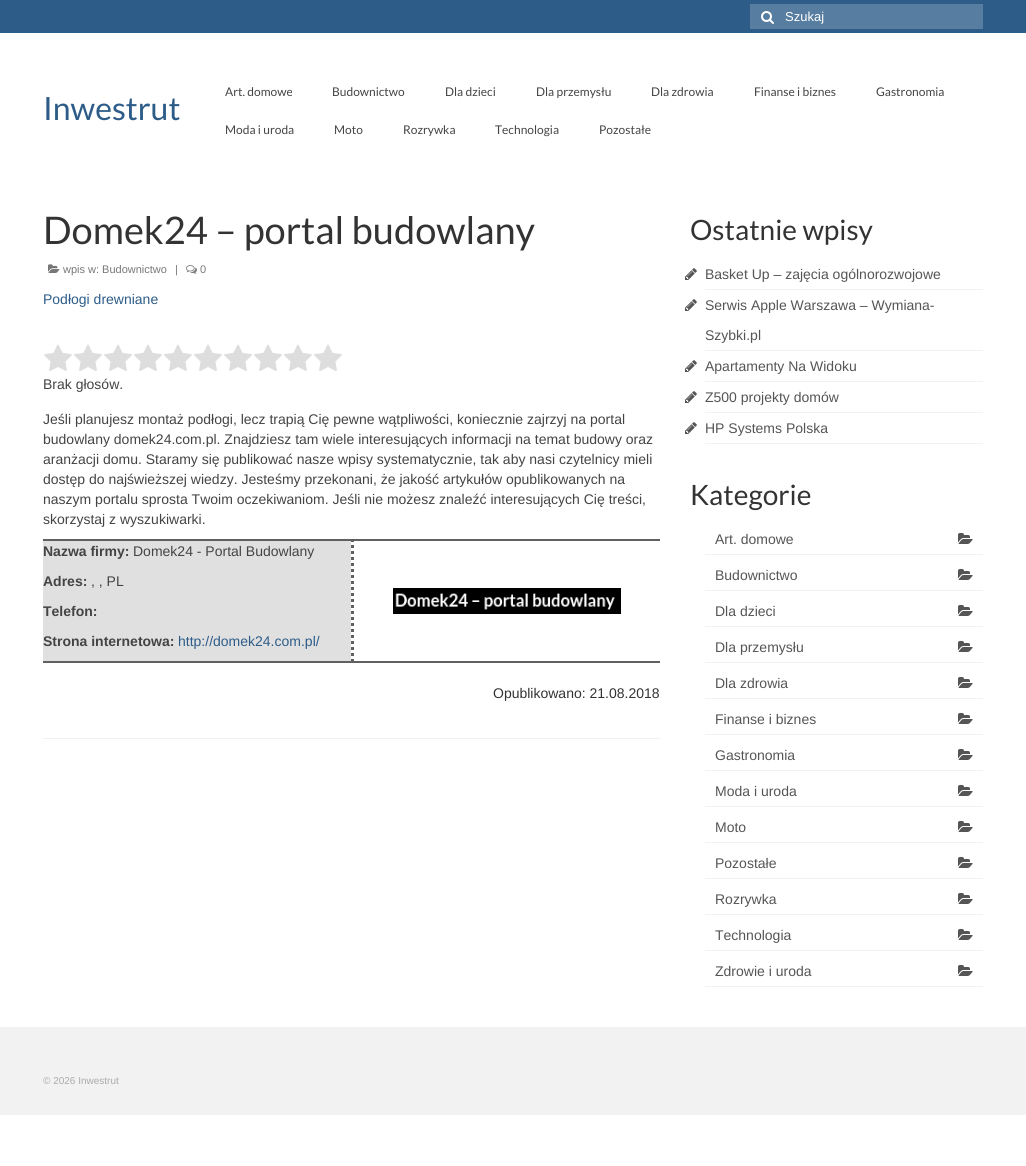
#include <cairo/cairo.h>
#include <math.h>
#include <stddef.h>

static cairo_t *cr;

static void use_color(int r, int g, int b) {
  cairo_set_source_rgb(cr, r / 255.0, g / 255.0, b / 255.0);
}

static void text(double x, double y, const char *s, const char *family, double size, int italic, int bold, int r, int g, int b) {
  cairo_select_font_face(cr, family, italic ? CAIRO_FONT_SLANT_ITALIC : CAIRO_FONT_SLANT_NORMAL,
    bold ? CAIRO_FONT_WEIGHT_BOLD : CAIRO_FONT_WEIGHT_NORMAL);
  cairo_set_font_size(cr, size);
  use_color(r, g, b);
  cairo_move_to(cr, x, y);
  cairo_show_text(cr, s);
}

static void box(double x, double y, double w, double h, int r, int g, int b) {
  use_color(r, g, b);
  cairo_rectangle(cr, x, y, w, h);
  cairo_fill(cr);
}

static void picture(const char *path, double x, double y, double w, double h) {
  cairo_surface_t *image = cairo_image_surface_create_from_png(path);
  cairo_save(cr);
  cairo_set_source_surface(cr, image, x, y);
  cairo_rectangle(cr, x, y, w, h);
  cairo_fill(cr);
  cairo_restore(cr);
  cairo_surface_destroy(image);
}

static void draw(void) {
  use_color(255, 255, 255);
  cairo_paint(cr);
  box(0, 0, 1026, 33, 45, 92, 136);
  box(750, 4, 233, 25, 87, 125, 160);
  picture("img_01.png", 761, 11, 13, 13);
  picture("img_02.png", 48, 264, 12, 9);
  picture("img_03.png", 186, 265, 11, 9);
  picture("img_04.png", 44, 344, 298, 27);
  box(43, 541, 308, 120, 224, 224, 224);
  box(43, 539, 617, 2, 96, 96, 96);
  box(43, 661, 617, 2, 96, 96, 96);
  cairo_new_path(cr);
  cairo_move_to(cr, 352.5, 539);
  cairo_line_to(cr, 352.5, 663);
  cairo_set_line_width(cr, 3);
  cairo_set_dash(cr, (double[]){3, 3}, 2, 0);
  cairo_stroke(cr);
  picture("img_05.png", 393, 588, 228, 26);
  box(43, 738, 617, 1, 242, 242, 242);
  box(705, 289, 278, 1, 242, 242, 242);
  picture("img_06.png", 685, 268, 12, 12);
  box(705, 350, 278, 1, 242, 242, 242);
  picture("img_06.png", 685, 299, 12, 12);
  box(705, 381, 278, 1, 242, 242, 242);
  picture("img_06.png", 685, 360, 12, 12);
  box(705, 412, 278, 1, 242, 242, 242);
  picture("img_06.png", 685, 391, 12, 12);
  box(705, 443, 278, 1, 242, 242, 242);
  picture("img_06.png", 685, 422, 12, 12);
  box(705, 554, 278, 1, 242, 242, 242);
  picture("img_07.png", 958, 533, 15, 11);
  box(705, 590, 278, 1, 242, 242, 242);
  picture("img_07.png", 958, 569, 15, 11);
  box(705, 626, 278, 1, 242, 242, 242);
  picture("img_07.png", 958, 605, 15, 11);
  box(705, 662, 278, 1, 242, 242, 242);
  picture("img_07.png", 958, 641, 15, 11);
  box(705, 698, 278, 1, 242, 242, 242);
  picture("img_07.png", 958, 677, 15, 11);
  box(705, 734, 278, 1, 242, 242, 242);
  picture("img_07.png", 958, 713, 15, 11);
  box(705, 770, 278, 1, 242, 242, 242);
  picture("img_07.png", 958, 749, 15, 11);
  box(705, 806, 278, 1, 242, 242, 242);
  picture("img_07.png", 958, 785, 15, 11);
  box(705, 842, 278, 1, 242, 242, 242);
  picture("img_07.png", 958, 821, 15, 11);
  box(705, 878, 278, 1, 242, 242, 242);
  picture("img_07.png", 958, 857, 15, 11);
  box(705, 914, 278, 1, 242, 242, 242);
  picture("img_07.png", 958, 893, 15, 11);
  box(705, 950, 278, 1, 242, 242, 242);
  picture("img_07.png", 958, 929, 15, 11);
  box(705, 986, 278, 1, 242, 242, 242);
  picture("img_07.png", 958, 965, 15, 11);
  box(0, 1027, 1026, 88, 242, 242, 242);
  text(785, 21, "Szukaj", "Liberation Sans", 13, 0, 0, 255, 255, 255);
  text(43, 120, "Inwestrut", "Lato", 32, 0, 0, 45, 92, 136);
  text(225, 96, "Art. domowe", "Lato", 12, 0, 0, 68, 68, 68);
  text(332, 96, "Budownictwo", "Lato", 12, 0, 0, 68, 68, 68);
  text(445, 96, "Dla dzieci", "Lato", 12, 0, 0, 68, 68, 68);
  text(536, 96, "Dla przemysłu", "Lato", 12, 0, 0, 68, 68, 68);
  text(651, 96, "Dla zdrowia", "Lato", 12, 0, 0, 68, 68, 68);
  text(754, 96, "Finanse i biznes", "Lato", 12, 0, 0, 68, 68, 68);
  text(876, 96, "Gastronomia", "Lato", 12, 0, 0, 68, 68, 68);
  text(225, 134, "Moda i uroda", "Lato", 12, 0, 0, 68, 68, 68);
  text(334, 134, "Moto", "Lato", 12, 0, 0, 68, 68, 68);
  text(403, 134, "Rozrywka", "Lato", 12, 0, 0, 68, 68, 68);
  text(495, 134, "Technologia", "Lato", 12, 0, 0, 68, 68, 68);
  text(599, 134, "Pozostałe", "Lato", 12, 0, 0, 68, 68, 68);
  text(43, 244, "Domek24 – portal budowlany", "Lato", 38, 0, 0, 51, 51, 51);
  text(63, 273, "wpis w: Budownictwo", "Liberation Sans", 11, 0, 0, 119, 119, 119);
  text(175, 273, "|", "Liberation Sans", 11, 0, 0, 119, 119, 119);
  text(200, 273, "0", "Liberation Sans", 11, 0, 0, 119, 119, 119);
  text(43, 304, "Podłogi drewniane", "Liberation Sans", 14, 0, 0, 45, 92, 136);
  text(43, 389, "Brak głosów.", "Liberation Sans", 14, 0, 0, 68, 68, 68);
  text(43, 424, "Jeśli planujesz montaż podłogi, lecz trapią Cię pewne wątpliwości, koniecznie zajrzyj na portal", "Liberation Sans", 14, 0, 0, 68, 68, 68);
  text(43, 444, "budowlany domek24.com.pl. Znajdziesz tam wiele interesujących informacji na temat budowy oraz", "Liberation Sans", 14, 0, 0, 68, 68, 68);
  text(43, 464, "aranżacji domu. Staramy się publikować nasze wpisy systematycznie, tak aby nasi czytelnicy mieli", "Liberation Sans", 14, 0, 0, 68, 68, 68);
  text(43, 484, "dostęp do najświeższej wiedzy. Jesteśmy przekonani, że jakość artykułów opublikowanych na", "Liberation Sans", 14, 0, 0, 68, 68, 68);
  text(43, 504, "naszym portalu sprosta Twoim oczekiwaniom. Jeśli nie możesz znaleźć interesujących Cię treści,", "Liberation Sans", 14, 0, 0, 68, 68, 68);
  text(43, 524, "skorzystaj z wyszukiwarki.", "Liberation Sans", 14, 0, 0, 68, 68, 68);
  text(43, 556, "Nazwa firmy:", "Liberation Sans", 14, 0, 1, 68, 68, 68);
  text(133, 556, "Domek24 - Portal Budowlany", "Liberation Sans", 14, 0, 0, 68, 68, 68);
  text(43, 586, "Adres:", "Liberation Sans", 14, 0, 1, 68, 68, 68);
  text(91, 586, ", , PL", "Liberation Sans", 14, 0, 0, 68, 68, 68);
  text(43, 616, "Telefon:", "Liberation Sans", 14, 0, 1, 68, 68, 68);
  text(43, 646, "Strona internetowa:", "Liberation Sans", 14, 0, 1, 68, 68, 68);
  text(178, 646, "http://domek24.com.pl/", "Liberation Sans", 14, 0, 0, 45, 92, 136);
  text(493, 698, "Opublikowano: 21.08.2018", "Liberation Sans", 14, 0, 0, 51, 51, 51);
  text(690, 240, "Ostatnie wpisy", "Lato", 28, 0, 0, 51, 51, 51);
  text(705, 279, "Basket Up – zajęcia ogólnorozwojowe", "Liberation Sans", 14, 0, 0, 85, 85, 85);
  text(705, 310, "Serwis Apple Warszawa – Wymiana-", "Liberation Sans", 14, 0, 0, 85, 85, 85);
  text(705, 340, "Szybki.pl", "Liberation Sans", 14, 0, 0, 85, 85, 85);
  text(705, 371, "Apartamenty Na Widoku", "Liberation Sans", 14, 0, 0, 85, 85, 85);
  text(705, 402, "Z500 projekty domów", "Liberation Sans", 14, 0, 0, 85, 85, 85);
  text(705, 433, "HP Systems Polska", "Liberation Sans", 14, 0, 0, 85, 85, 85);
  text(690, 505, "Kategorie", "Lato", 28, 0, 0, 51, 51, 51);
  text(715, 544, "Art. domowe", "Liberation Sans", 14, 0, 0, 85, 85, 85);
  text(715, 580, "Budownictwo", "Liberation Sans", 14, 0, 0, 85, 85, 85);
  text(715, 616, "Dla dzieci", "Liberation Sans", 14, 0, 0, 85, 85, 85);
  text(715, 652, "Dla przemysłu", "Liberation Sans", 14, 0, 0, 85, 85, 85);
  text(715, 688, "Dla zdrowia", "Liberation Sans", 14, 0, 0, 85, 85, 85);
  text(715, 724, "Finanse i biznes", "Liberation Sans", 14, 0, 0, 85, 85, 85);
  text(715, 760, "Gastronomia", "Liberation Sans", 14, 0, 0, 85, 85, 85);
  text(715, 796, "Moda i uroda", "Liberation Sans", 14, 0, 0, 85, 85, 85);
  text(715, 832, "Moto", "Liberation Sans", 14, 0, 0, 85, 85, 85);
  text(715, 868, "Pozostałe", "Liberation Sans", 14, 0, 0, 85, 85, 85);
  text(715, 904, "Rozrywka", "Liberation Sans", 14, 0, 0, 85, 85, 85);
  text(715, 940, "Technologia", "Liberation Sans", 14, 0, 0, 85, 85, 85);
  text(715, 976, "Zdrowie i uroda", "Liberation Sans", 14, 0, 0, 85, 85, 85);
  text(43, 1084, "© 2026 Inwestrut", "Liberation Sans", 10, 0, 0, 170, 170, 170);
}

int main(void) {
  cairo_surface_t *surface = cairo_image_surface_create(CAIRO_FORMAT_RGB24, 1026, 1166);
  cr = cairo_create(surface);
  cairo_font_options_t *options = cairo_font_options_create();
  cairo_font_options_set_hint_metrics(options, CAIRO_HINT_METRICS_OFF);
  cairo_font_options_set_hint_style(options, CAIRO_HINT_STYLE_NONE);
  cairo_set_font_options(cr, options);
  cairo_set_miter_limit(cr, 4);
  draw();
  cairo_surface_write_to_png(surface, "out.png");
  cairo_font_options_destroy(options);
  cairo_destroy(cr);
  cairo_surface_destroy(surface);
  return 0;
}
